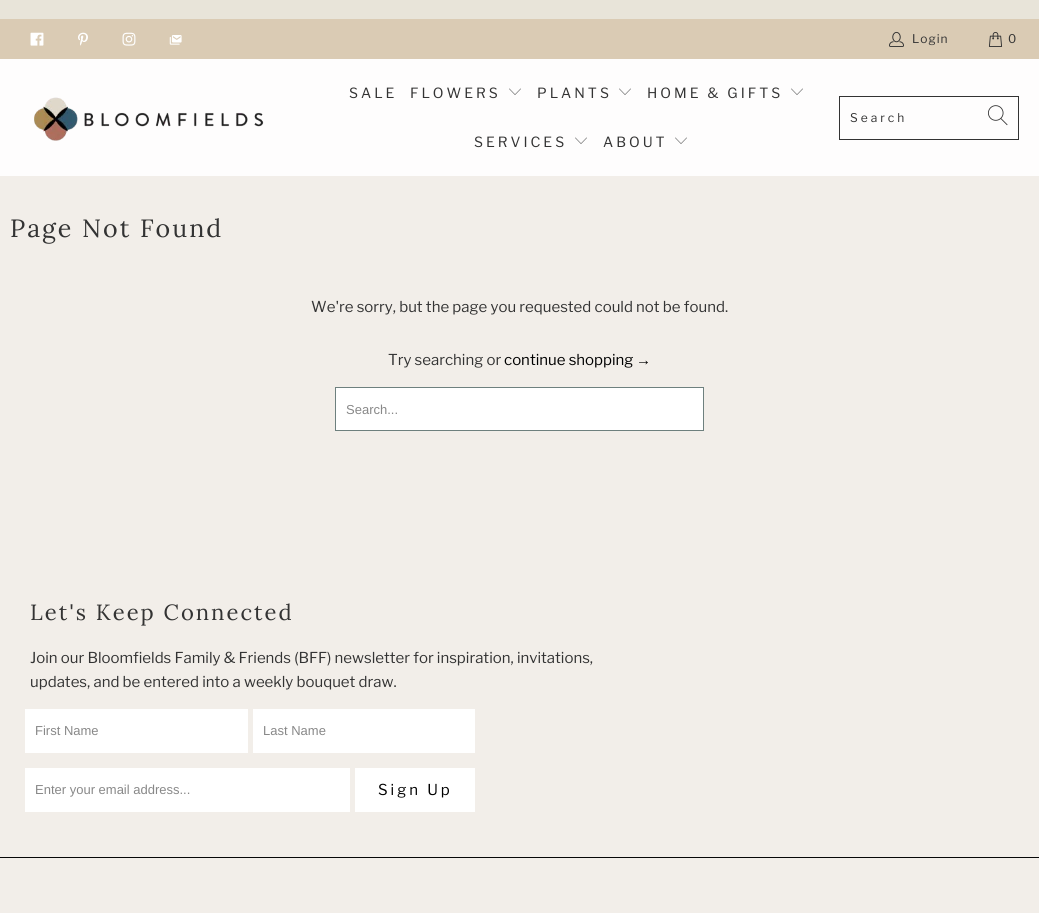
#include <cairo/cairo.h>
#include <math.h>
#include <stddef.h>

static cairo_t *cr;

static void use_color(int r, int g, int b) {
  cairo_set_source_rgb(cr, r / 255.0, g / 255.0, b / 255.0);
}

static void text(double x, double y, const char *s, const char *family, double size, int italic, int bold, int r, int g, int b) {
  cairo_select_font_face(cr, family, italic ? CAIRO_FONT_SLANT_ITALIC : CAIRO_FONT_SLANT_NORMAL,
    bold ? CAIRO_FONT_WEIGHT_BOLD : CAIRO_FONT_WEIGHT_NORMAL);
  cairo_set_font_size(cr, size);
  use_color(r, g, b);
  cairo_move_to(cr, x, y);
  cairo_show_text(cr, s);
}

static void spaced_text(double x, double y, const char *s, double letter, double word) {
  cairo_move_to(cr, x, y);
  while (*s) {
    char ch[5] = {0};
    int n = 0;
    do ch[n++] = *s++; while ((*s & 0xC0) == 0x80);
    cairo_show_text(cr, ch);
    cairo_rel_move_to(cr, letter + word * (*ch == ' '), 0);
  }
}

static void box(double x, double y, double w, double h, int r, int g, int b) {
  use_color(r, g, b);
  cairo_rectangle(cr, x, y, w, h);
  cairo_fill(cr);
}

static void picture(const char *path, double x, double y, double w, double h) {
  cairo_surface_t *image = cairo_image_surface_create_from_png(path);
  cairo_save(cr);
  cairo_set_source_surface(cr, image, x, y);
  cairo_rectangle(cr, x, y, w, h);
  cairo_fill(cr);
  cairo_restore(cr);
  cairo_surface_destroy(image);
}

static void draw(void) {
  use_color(242, 238, 233);
  cairo_paint(cr);
  box(0, 0, 1039, 19, 232, 228, 217);
  box(0, 19, 1039, 40, 218, 203, 180);
  picture("img_01.png", 30, 32, 14, 14);
  picture("img_02.png", 78, 32, 10, 14);
  picture("img_03.png", 122, 32, 14, 14);
  picture("img_04.png", 169, 35, 13, 10);
  picture("img_05.png", 889, 31, 15, 16);
  picture("img_06.png", 988, 32, 15, 15);
  box(0, 59, 1039, 117, 254, 253, 253);
  picture("img_07.png", 34, 97, 230, 44);
  picture("img_08.png", 509, 88, 12, 7);
  picture("img_08.png", 619, 88, 12, 7);
  picture("img_08.png", 791, 88, 12, 7);
  picture("img_08.png", 575, 137, 12, 7);
  picture("img_08.png", 675, 137, 12, 7);
  cairo_rectangle(cr, 839.5, 96.5, 179, 43);
  use_color(51, 51, 51);
  cairo_set_line_width(cr, 1);
  cairo_stroke(cr);
  picture("img_09.png", 988, 105, 20, 21);
  use_color(255, 255, 255);
  cairo_rectangle(cr, 335.5, 387.5, 368, 43);
  cairo_fill_preserve(cr);
  use_color(110, 128, 126);
  cairo_stroke(cr);
  box(25, 709, 223, 44, 255, 255, 255);
  box(253, 709, 222, 44, 255, 255, 255);
  box(25, 768, 325, 44, 255, 255, 255);
  box(355, 768, 120, 44, 255, 255, 255);
  box(0, 857, 1039, 1, 7, 7, 7);
  cairo_select_font_face(cr, "Libre Franklin", CAIRO_FONT_SLANT_NORMAL, CAIRO_FONT_WEIGHT_NORMAL);
  cairo_set_font_size(cr, 12);
  use_color(51, 51, 51);
  spaced_text(912, 43, "Login", 1, 0);
  spaced_text(1008, 43, "0", 1, 0);
  cairo_set_font_size(cr, 14);
  spaced_text(349, 98, "SALE", 3, 0);
  spaced_text(410, 98, "FLOWERS", 3, 0);
  spaced_text(537, 98, "PLANTS", 3, 0);
  spaced_text(647, 98, "HOME & GIFTS", 3, 0);
  spaced_text(474, 147, "SERVICES", 3, 0);
  spaced_text(603, 147, "ABOUT", 3, 0);
  cairo_set_font_size(cr, 12);
  spaced_text(850, 122, "Search", 3, 0);
  cairo_select_font_face(cr, "Lora", CAIRO_FONT_SLANT_NORMAL, CAIRO_FONT_WEIGHT_NORMAL);
  cairo_set_font_size(cr, 25);
  spaced_text(10, 237, "Page Not Found", 2, 0);
  text(311, 312, "We're sorry, but the page you requested could not be found.", "Libre Franklin", 15, 0, 0, 51, 51, 51);
  text(388, 365, "Try searching or", "Libre Franklin", 15, 0, 0, 51, 51, 51);
  text(504, 365, "continue shopping", "Libre Franklin", 15, 0, 0, 0, 0, 0);
  text(636, 365, "→", "Liberation Sans", 15, 0, 0, 0, 0, 0);
  text(346, 414, "Search...", "Liberation Sans", 13, 0, 0, 136, 136, 136);
  cairo_select_font_face(cr, "Lora", CAIRO_FONT_SLANT_NORMAL, CAIRO_FONT_WEIGHT_NORMAL);
  cairo_set_font_size(cr, 22);
  use_color(51, 51, 51);
  spaced_text(30, 620, "Let's Keep Connected", 2, 0);
  text(30, 663, "Join our Bloomfields Family & Friends (BFF) newsletter for inspiration, invitations,", "Libre Franklin", 15, 0, 0, 51, 51, 51);
  text(30, 687, "updates, and be entered into a weekly bouquet draw.", "Libre Franklin", 15, 0, 0, 51, 51, 51);
  text(35, 735, "First Name", "Liberation Sans", 13, 0, 0, 136, 136, 136);
  text(263, 735, "Last Name", "Liberation Sans", 13, 0, 0, 136, 136, 136);
  text(35, 794, "Enter your email address...", "Liberation Sans", 13, 0, 0, 136, 136, 136);
  cairo_select_font_face(cr, "Libre Franklin", CAIRO_FONT_SLANT_NORMAL, CAIRO_FONT_WEIGHT_NORMAL);
  cairo_set_font_size(cr, 15);
  use_color(0, 0, 0);
  spaced_text(378, 795, "Sign Up", 3, 0);
}

int main(void) {
  cairo_surface_t *surface = cairo_image_surface_create(CAIRO_FORMAT_RGB24, 1039, 913);
  cr = cairo_create(surface);
  cairo_font_options_t *options = cairo_font_options_create();
  cairo_font_options_set_hint_metrics(options, CAIRO_HINT_METRICS_OFF);
  cairo_font_options_set_hint_style(options, CAIRO_HINT_STYLE_NONE);
  cairo_set_font_options(cr, options);
  cairo_set_miter_limit(cr, 4);
  draw();
  cairo_surface_write_to_png(surface, "out.png");
  cairo_font_options_destroy(options);
  cairo_destroy(cr);
  cairo_surface_destroy(surface);
  return 0;
}
